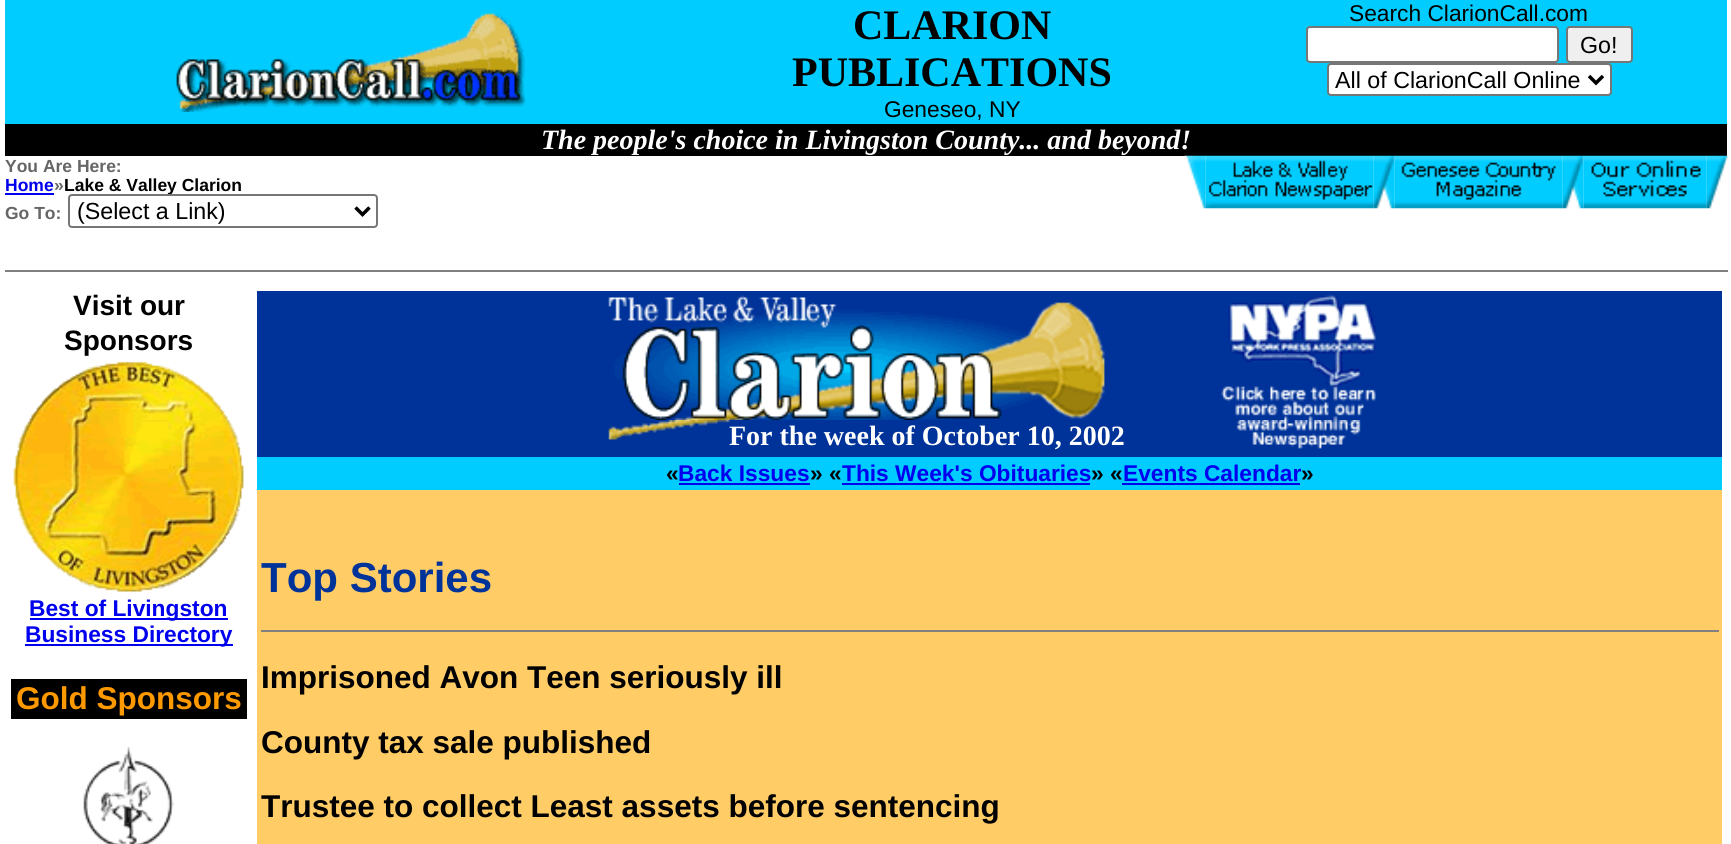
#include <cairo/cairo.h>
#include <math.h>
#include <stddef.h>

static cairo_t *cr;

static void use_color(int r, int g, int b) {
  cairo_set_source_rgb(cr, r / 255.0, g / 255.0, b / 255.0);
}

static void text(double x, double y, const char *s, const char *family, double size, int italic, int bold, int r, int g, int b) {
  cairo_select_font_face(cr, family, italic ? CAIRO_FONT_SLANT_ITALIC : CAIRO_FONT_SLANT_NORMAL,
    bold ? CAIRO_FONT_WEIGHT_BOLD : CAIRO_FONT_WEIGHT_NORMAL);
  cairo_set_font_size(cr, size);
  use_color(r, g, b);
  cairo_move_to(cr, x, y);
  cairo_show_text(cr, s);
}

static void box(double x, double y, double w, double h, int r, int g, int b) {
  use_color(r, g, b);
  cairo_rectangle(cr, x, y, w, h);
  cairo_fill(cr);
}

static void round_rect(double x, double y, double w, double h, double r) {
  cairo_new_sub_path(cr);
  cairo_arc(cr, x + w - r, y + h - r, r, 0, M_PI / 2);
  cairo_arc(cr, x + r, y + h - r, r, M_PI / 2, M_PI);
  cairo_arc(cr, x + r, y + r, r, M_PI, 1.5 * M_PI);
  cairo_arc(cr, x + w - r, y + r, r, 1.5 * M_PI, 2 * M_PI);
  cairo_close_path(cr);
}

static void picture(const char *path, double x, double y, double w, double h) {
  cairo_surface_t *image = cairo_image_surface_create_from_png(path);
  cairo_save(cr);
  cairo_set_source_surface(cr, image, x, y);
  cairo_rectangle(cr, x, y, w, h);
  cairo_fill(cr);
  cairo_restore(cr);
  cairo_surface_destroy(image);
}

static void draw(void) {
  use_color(255, 255, 255);
  cairo_paint(cr);
  box(5, 0, 1722, 124, 0, 204, 255);
  picture("img_01.png", 176, 13, 349, 99);
  use_color(255, 255, 255);
  round_rect(1307, 27, 251, 35, 3);
  cairo_fill_preserve(cr);
  use_color(118, 118, 118);
  cairo_stroke(cr);
  use_color(239, 239, 239);
  round_rect(1567, 27, 65, 35, 3);
  cairo_fill_preserve(cr);
  use_color(118, 118, 118);
  cairo_stroke(cr);
  use_color(255, 255, 255);
  round_rect(1328, 64, 283, 31, 3);
  cairo_fill_preserve(cr);
  use_color(118, 118, 118);
  cairo_stroke(cr);
  cairo_new_path(cr);
  cairo_move_to(cr, 1589, 76);
  cairo_line_to(cr, 1596, 83);
  cairo_line_to(cr, 1603, 76);
  use_color(0, 0, 0);
  cairo_set_line_width(cr, 3.5);
  cairo_stroke(cr);
  box(5, 124, 1722, 32, 0, 0, 0);
  box(5, 193, 49, 2, 0, 0, 238);
  box(5, 270, 1723, 2, 128, 128, 128);
  picture("img_09.png", 13, 361, 231, 231);
  box(30, 618, 198, 2, 0, 0, 238);
  box(25, 644, 208, 2, 0, 0, 238);
  box(11, 679, 236, 40, 0, 0, 0);
  picture("img_10.png", 83, 747, 91, 97);
  box(257, 490, 1465, 354, 255, 204, 102);
  box(257, 291, 1465, 166, 0, 51, 153);
  picture("img_11.png", 608, 295, 768, 125);
  picture("img_12.png", 608, 420, 122, 20);
  picture("img_13.png", 1236, 420, 125, 29);
  box(257, 457, 1465, 33, 0, 204, 255);
  box(679, 483, 131, 2, 0, 0, 238);
  box(842, 483, 248, 2, 0, 0, 238);
  box(1122, 483, 178, 2, 0, 0, 238);
  box(261, 630, 1458, 2, 128, 128, 128);
  text(853, 39, "CLARION", "Liberation Serif", 42, 0, 1, 0, 0, 0);
  text(792, 86, "PUBLICATIONS", "Liberation Serif", 42, 0, 1, 0, 0, 0);
  text(884, 117, "Geneseo, NY", "Liberation Sans", 22.75, 0, 0, 0, 0, 0);
  text(1349, 21, "Search ClarionCall.com", "Liberation Sans", 22.75, 0, 0, 0, 0, 0);
  text(1580, 53, "Go!", "Liberation Sans", 23.25, 0, 0, 0, 0, 0);
  text(1335, 88, "All of ClarionCall Online", "Liberation Sans", 23.25, 0, 0, 0, 0, 0);
  text(541, 149, "The people's choice in Livingston County... and beyond!", "Liberation Serif", 28, 1, 1, 255, 255, 255);
  text(5, 172, "You Are Here:", "Liberation Sans", 17.5, 0, 1, 102, 102, 102);
  text(5, 191, "Home", "Liberation Sans", 17.5, 0, 1, 0, 0, 238);
  text(54, 191, "»", "Liberation Sans", 17.5, 0, 1, 102, 102, 102);
  text(64, 191, "Lake & Valley Clarion", "Liberation Sans", 17.5, 0, 1, 0, 0, 0);
  text(5, 219, "Go To:", "Liberation Sans", 17.5, 0, 1, 102, 102, 102);
  use_color(255, 255, 255);
  round_rect(69, 195, 308, 32, 3);
  cairo_fill_preserve(cr);
  use_color(118, 118, 118);
  cairo_set_line_width(cr, 2);
  cairo_stroke(cr);
  cairo_new_path(cr);
  cairo_move_to(cr, 355.5, 207.5);
  cairo_line_to(cr, 362.5, 214.5);
  cairo_line_to(cr, 369.5, 207.5);
  use_color(0, 0, 0);
  cairo_set_line_width(cr, 3.5);
  cairo_stroke(cr);
  text(77, 219, "(Select a Link)", "Liberation Sans", 23.25, 0, 0, 0, 0, 0);
  picture("img_02.png", 1184, 155, 22, 54);
  picture("img_03.png", 1205, 155, 169, 54);
  picture("img_04.png", 1373, 155, 22, 54);
  picture("img_05.png", 1394, 155, 169, 54);
  picture("img_06.png", 1562, 155, 22, 54);
  picture("img_07.png", 1583, 155, 124, 54);
  picture("img_08.png", 1706, 155, 22, 54);
  text(73, 315, "Visit our", "Liberation Sans", 28, 0, 1, 0, 0, 0);
  text(64, 350, "Sponsors", "Liberation Sans", 28, 0, 1, 0, 0, 0);
  text(29, 616, "Best of Livingston", "Liberation Sans", 22.75, 0, 1, 0, 0, 238);
  text(25, 642, "Business Directory", "Liberation Sans", 22.75, 0, 1, 0, 0, 238);
  text(16, 709, "Gold Sponsors", "Liberation Sans", 31.5, 0, 1, 255, 153, 0);
  text(729, 445, "For the week of October 10, 2002", "Liberation Serif", 28, 0, 1, 255, 255, 255);
  text(666, 481, "«", "Liberation Sans", 22.75, 0, 1, 0, 0, 0);
  text(678, 481, "Back Issues", "Liberation Sans", 22.75, 0, 1, 0, 0, 238);
  text(810, 481, "» «", "Liberation Sans", 22.75, 0, 1, 0, 0, 0);
  text(842, 481, "This Week's Obituaries", "Liberation Sans", 22.75, 0, 1, 0, 0, 238);
  text(1091, 481, "» «", "Liberation Sans", 22.75, 0, 1, 0, 0, 0);
  text(1123, 481, "Events Calendar", "Liberation Sans", 22.75, 0, 1, 0, 0, 238);
  text(1301, 481, "»", "Liberation Sans", 22.75, 0, 1, 0, 0, 0);
  text(261, 592, "Top Stories", "Liberation Sans", 42, 0, 1, 0, 51, 153);
  text(261, 688, "Imprisoned Avon Teen seriously ill", "Liberation Sans", 31.5, 0, 1, 0, 0, 0);
  text(261, 753, "County tax sale published", "Liberation Sans", 31.5, 0, 1, 0, 0, 0);
  text(261, 817, "Trustee to collect Least assets before sentencing", "Liberation Sans", 31.5, 0, 1, 0, 0, 0);
}

int main(void) {
  cairo_surface_t *surface = cairo_image_surface_create(CAIRO_FORMAT_RGB24, 1731, 844);
  cr = cairo_create(surface);
  cairo_font_options_t *options = cairo_font_options_create();
  cairo_font_options_set_hint_metrics(options, CAIRO_HINT_METRICS_OFF);
  cairo_font_options_set_hint_style(options, CAIRO_HINT_STYLE_NONE);
  cairo_set_font_options(cr, options);
  cairo_set_miter_limit(cr, 4);
  draw();
  cairo_surface_write_to_png(surface, "out.png");
  cairo_font_options_destroy(options);
  cairo_destroy(cr);
  cairo_surface_destroy(surface);
  return 0;
}
